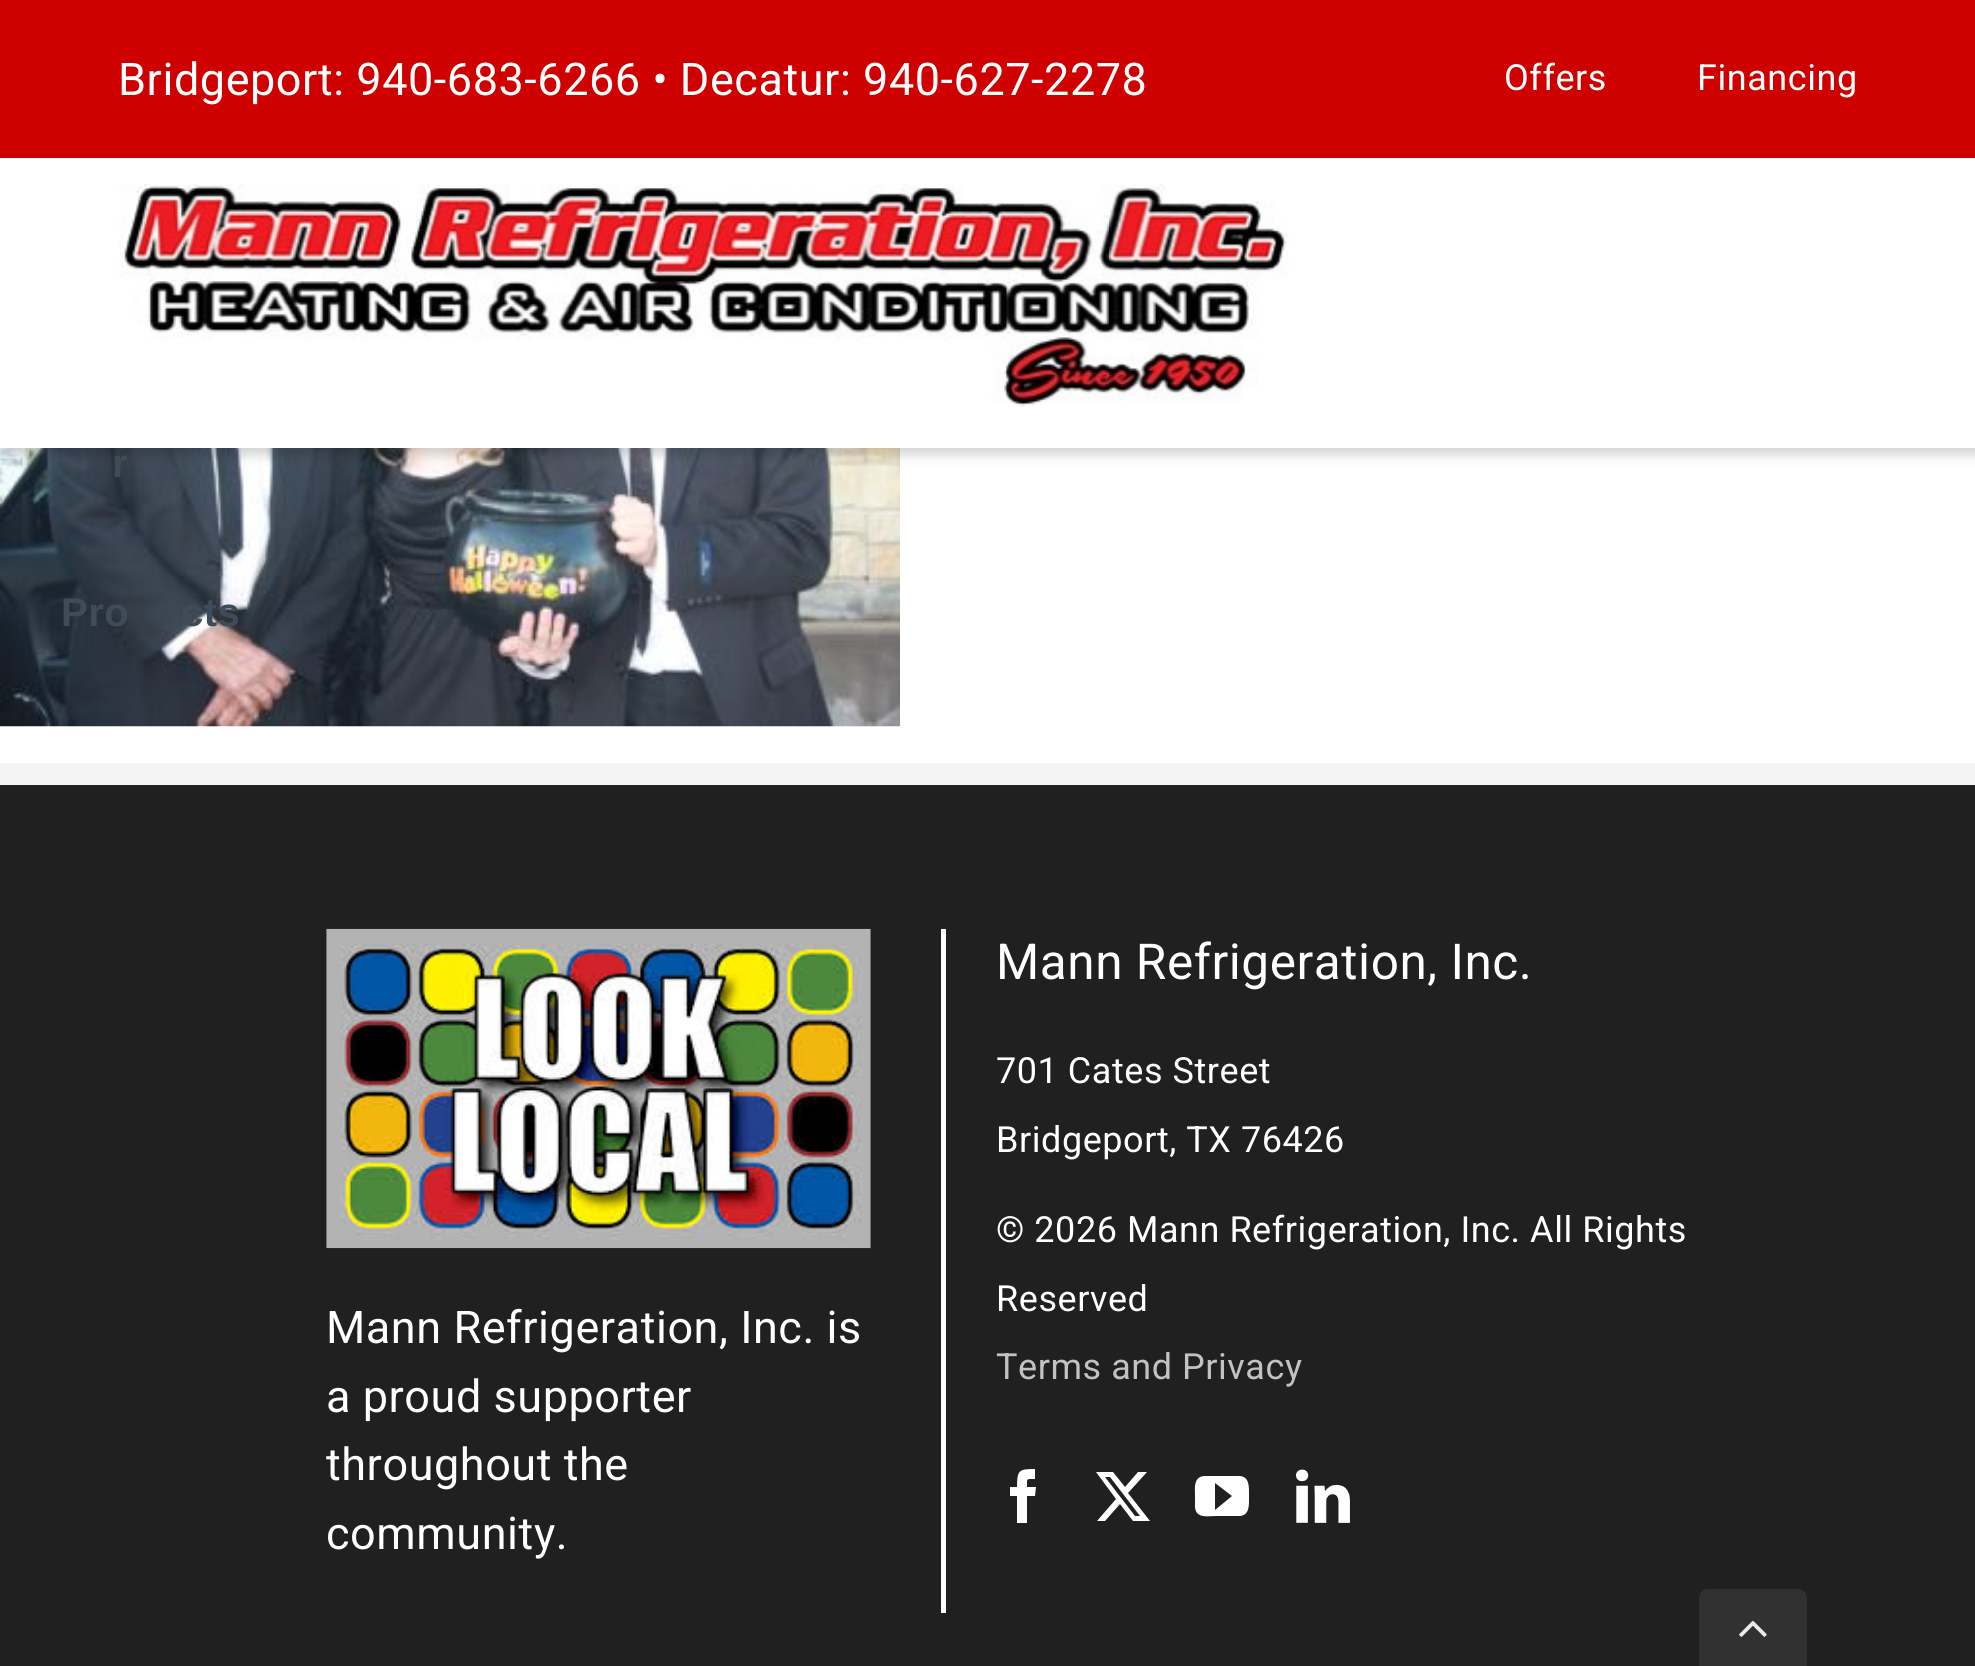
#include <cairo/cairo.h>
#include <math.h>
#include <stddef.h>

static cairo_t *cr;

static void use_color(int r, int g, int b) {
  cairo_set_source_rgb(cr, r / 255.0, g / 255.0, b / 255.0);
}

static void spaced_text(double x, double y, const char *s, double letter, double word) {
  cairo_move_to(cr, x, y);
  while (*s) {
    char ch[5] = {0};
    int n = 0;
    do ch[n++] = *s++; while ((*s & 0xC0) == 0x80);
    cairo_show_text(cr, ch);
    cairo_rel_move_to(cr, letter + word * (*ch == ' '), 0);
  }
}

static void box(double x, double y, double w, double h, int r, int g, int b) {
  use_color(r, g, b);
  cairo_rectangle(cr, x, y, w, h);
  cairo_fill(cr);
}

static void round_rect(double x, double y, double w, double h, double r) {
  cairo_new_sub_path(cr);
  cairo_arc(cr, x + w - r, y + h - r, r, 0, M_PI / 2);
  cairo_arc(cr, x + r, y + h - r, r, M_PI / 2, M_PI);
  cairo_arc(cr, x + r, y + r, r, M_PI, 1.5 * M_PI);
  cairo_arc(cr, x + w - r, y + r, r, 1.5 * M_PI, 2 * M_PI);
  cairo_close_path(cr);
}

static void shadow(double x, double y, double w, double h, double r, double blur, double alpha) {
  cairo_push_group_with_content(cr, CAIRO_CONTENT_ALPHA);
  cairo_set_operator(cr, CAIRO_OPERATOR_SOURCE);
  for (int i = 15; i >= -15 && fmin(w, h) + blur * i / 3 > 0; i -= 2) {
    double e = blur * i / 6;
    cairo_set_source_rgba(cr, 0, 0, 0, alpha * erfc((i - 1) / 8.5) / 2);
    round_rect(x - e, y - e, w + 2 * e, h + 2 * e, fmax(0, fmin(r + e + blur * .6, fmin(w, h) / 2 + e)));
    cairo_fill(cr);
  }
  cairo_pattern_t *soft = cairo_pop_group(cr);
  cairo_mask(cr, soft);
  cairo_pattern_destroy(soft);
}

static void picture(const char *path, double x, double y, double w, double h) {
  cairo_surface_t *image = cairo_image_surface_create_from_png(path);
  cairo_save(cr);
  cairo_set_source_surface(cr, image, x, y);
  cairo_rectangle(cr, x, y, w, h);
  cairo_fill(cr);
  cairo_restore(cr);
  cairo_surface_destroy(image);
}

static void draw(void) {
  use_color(255, 255, 255);
  cairo_paint(cr);
  picture("img_02.png", 0, 448, 900, 279);
  use_color(0, 0, 0);
  shadow(7, 146, 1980, 309, 0, 5.5, 0.17);
  box(0, 0, 1975, 158, 206, 0, 0);
  box(0, 158, 1975, 290, 255, 255, 255);
  picture("img_01.png", 119, 184, 1170, 223);
  box(0, 785, 1975, 881, 32, 32, 32);
  box(0, 763, 1975, 22, 244, 244, 244);
  box(941, 929, 5, 684, 255, 255, 255);
  cairo_new_path(cr);
  cairo_move_to(cr, 1027, 1523);
  cairo_line_to(cr, 1017, 1523);
  cairo_line_to(cr, 1017, 1496);
  cairo_line_to(cr, 1010, 1496);
  cairo_line_to(cr, 1010, 1487);
  cairo_line_to(cr, 1017, 1487);
  cairo_curve_to(cr, 1017, 1470, 1019, 1469, 1035, 1469);
  cairo_line_to(cr, 1035, 1479);
  cairo_curve_to(cr, 1026, 1479, 1027, 1478, 1027, 1487);
  cairo_line_to(cr, 1036, 1487);
  cairo_line_to(cr, 1035, 1496);
  cairo_line_to(cr, 1027, 1496);
  cairo_close_path(cr);
  cairo_fill(cr);
  cairo_new_path(cr);
  cairo_move_to(cr, 1138, 1472);
  cairo_line_to(cr, 1147, 1472);
  cairo_line_to(cr, 1128, 1493);
  cairo_line_to(cr, 1150, 1521);
  cairo_line_to(cr, 1133, 1521);
  cairo_line_to(cr, 1120, 1504);
  cairo_line_to(cr, 1105, 1521);
  cairo_line_to(cr, 1097, 1521);
  cairo_line_to(cr, 1116, 1499);
  cairo_line_to(cr, 1096, 1472);
  cairo_line_to(cr, 1113, 1472);
  cairo_line_to(cr, 1125, 1487);
  cairo_close_path(cr);
  cairo_move_to(cr, 1135, 1516);
  cairo_line_to(cr, 1140, 1516);
  cairo_line_to(cr, 1110, 1477);
  cairo_line_to(cr, 1105, 1477);
  cairo_close_path(cr);
  cairo_fill(cr);
  cairo_new_path(cr);
  cairo_move_to(cr, 1239, 1476);
  cairo_line_to(cr, 1204, 1476);
  cairo_curve_to(cr, 1193, 1477, 1195, 1489, 1195, 1496);
  cairo_line_to(cr, 1195, 1507);
  cairo_curve_to(cr, 1196, 1519, 1208, 1516, 1216, 1516);
  cairo_line_to(cr, 1240, 1516);
  cairo_curve_to(cr, 1250, 1515, 1249, 1504, 1249, 1496);
  cairo_curve_to(cr, 1249, 1488, 1250, 1476, 1239, 1476);
  cairo_close_path(cr);
  cairo_move_to(cr, 1215, 1510);
  cairo_line_to(cr, 1215, 1483);
  cairo_line_to(cr, 1232, 1496);
  cairo_close_path(cr);
  cairo_fill(cr);
  picture("img_03.png", 1296, 1469, 54, 54);
  picture("img_04.png", 326, 928, 545, 321);
  use_color(49, 49, 49);
  cairo_new_path(cr);
  cairo_move_to(cr, 1708, 1589);
  cairo_line_to(cr, 1798, 1589);
  cairo_curve_to(cr, 1803, 1589, 1807, 1593, 1807, 1598);
  cairo_line_to(cr, 1807, 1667);
  cairo_line_to(cr, 1699, 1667);
  cairo_line_to(cr, 1699, 1598);
  cairo_curve_to(cr, 1699, 1593, 1703, 1589, 1708, 1589);
  cairo_close_path(cr);
  cairo_fill(cr);
  picture("img_05.png", 1739, 1620, 28, 17);
  cairo_select_font_face(cr, "Roboto", CAIRO_FONT_SLANT_NORMAL, CAIRO_FONT_WEIGHT_NORMAL);
  cairo_set_font_size(cr, 45);
  use_color(255, 255, 255);
  spaced_text(118, 95, "Bridgeport: 940-683-6266 • Decatur: 940-627-2278", 0.55, 0);
  cairo_set_font_size(cr, 36);
  spaced_text(1504, 90, "Offers", 0.55, 0);
  spaced_text(1697, 90, "Financing", 0.55, 0);
  cairo_select_font_face(cr, "Liberation Sans", CAIRO_FONT_SLANT_NORMAL, CAIRO_FONT_WEIGHT_BOLD);
  cairo_set_font_size(cr, 40);
  use_color(63, 75, 88);
  spaced_text(112, 477, "r", 0.5, 0);
  spaced_text(61, 626, "Pro", 0.5, 0);
  spaced_text(181, 626, "cts", 0.5, 0);
  cairo_select_font_face(cr, "Roboto", CAIRO_FONT_SLANT_NORMAL, CAIRO_FONT_WEIGHT_NORMAL);
  cairo_set_font_size(cr, 49.5);
  use_color(255, 255, 255);
  spaced_text(996, 979, "Mann Refrigeration, Inc.", 0.55, 0);
  cairo_set_font_size(cr, 36);
  spaced_text(996, 1083, "701 Cates Street", 0.55, 0);
  spaced_text(996, 1152, "Bridgeport, TX 76426", 0.55, 0);
  spaced_text(996, 1242, "© 2026 Mann Refrigeration, Inc. All Rights", 0.55, 0);
  spaced_text(996, 1311, "Reserved", 0.55, 0);
  use_color(194, 194, 194);
  spaced_text(996, 1379, "Terms and Privacy", 0.55, 0);
  cairo_set_font_size(cr, 45);
  use_color(255, 255, 255);
  spaced_text(326, 1343, "Mann Refrigeration, Inc. is", 0.55, 0);
  spaced_text(326, 1412, "a proud supporter", 0.55, 0);
  spaced_text(326, 1480, "throughout the", 0.55, 0);
  spaced_text(326, 1549, "community.", 0.55, 0);
}

int main(void) {
  cairo_surface_t *surface = cairo_image_surface_create(CAIRO_FORMAT_RGB24, 1975, 1666);
  cr = cairo_create(surface);
  cairo_font_options_t *options = cairo_font_options_create();
  cairo_font_options_set_hint_metrics(options, CAIRO_HINT_METRICS_OFF);
  cairo_font_options_set_hint_style(options, CAIRO_HINT_STYLE_NONE);
  cairo_set_font_options(cr, options);
  cairo_set_miter_limit(cr, 4);
  draw();
  cairo_surface_write_to_png(surface, "out.png");
  cairo_font_options_destroy(options);
  cairo_destroy(cr);
  cairo_surface_destroy(surface);
  return 0;
}
